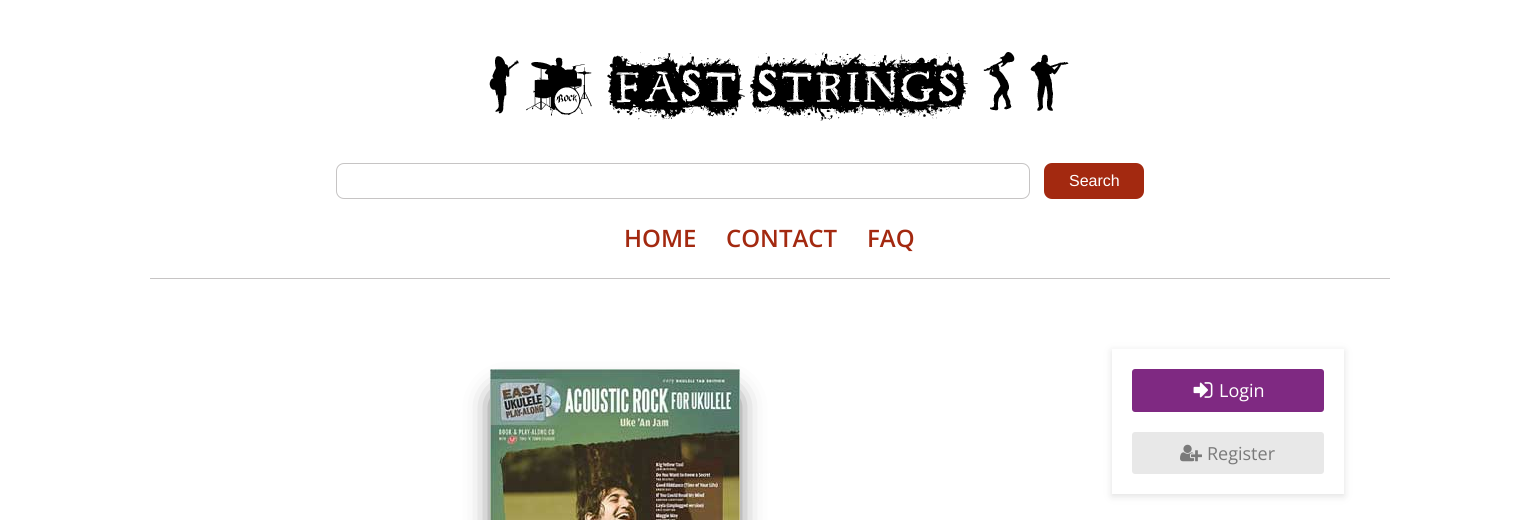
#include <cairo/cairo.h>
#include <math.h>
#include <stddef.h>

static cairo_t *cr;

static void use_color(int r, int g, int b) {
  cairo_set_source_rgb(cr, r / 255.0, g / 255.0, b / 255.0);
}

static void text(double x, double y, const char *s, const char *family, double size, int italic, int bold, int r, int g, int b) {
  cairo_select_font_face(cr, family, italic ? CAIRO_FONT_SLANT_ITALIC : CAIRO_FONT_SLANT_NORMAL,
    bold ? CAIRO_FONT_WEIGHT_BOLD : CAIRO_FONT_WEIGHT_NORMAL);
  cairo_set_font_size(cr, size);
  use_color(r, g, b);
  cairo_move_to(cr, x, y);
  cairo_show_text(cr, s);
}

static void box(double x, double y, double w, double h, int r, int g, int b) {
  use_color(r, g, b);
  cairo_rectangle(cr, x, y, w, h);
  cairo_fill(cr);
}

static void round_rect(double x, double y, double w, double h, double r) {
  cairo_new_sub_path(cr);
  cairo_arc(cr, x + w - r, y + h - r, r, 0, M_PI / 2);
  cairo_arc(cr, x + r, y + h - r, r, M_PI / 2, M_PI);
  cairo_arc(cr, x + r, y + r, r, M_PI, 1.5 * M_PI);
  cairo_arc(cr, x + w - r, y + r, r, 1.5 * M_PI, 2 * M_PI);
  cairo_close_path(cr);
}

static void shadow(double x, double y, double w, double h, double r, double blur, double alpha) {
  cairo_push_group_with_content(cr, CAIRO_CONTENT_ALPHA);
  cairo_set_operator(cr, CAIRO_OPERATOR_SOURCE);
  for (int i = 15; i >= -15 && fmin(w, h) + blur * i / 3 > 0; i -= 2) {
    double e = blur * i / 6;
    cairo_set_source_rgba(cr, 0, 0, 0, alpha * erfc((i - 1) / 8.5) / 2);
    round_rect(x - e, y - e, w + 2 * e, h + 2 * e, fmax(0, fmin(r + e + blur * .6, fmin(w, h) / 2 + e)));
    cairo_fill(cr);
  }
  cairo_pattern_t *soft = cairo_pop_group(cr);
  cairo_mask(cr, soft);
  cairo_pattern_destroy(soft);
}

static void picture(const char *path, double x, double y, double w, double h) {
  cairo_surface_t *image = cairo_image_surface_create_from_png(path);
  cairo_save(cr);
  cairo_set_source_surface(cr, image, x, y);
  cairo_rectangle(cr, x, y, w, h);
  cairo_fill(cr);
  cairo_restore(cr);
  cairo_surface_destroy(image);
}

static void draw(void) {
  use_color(255, 255, 255);
  cairo_paint(cr);
  picture("img_01.png", 489, 52, 580, 69);
  round_rect(336.5, 163.5, 693, 35, 7.5);
  use_color(198, 196, 196);
  cairo_set_line_width(cr, 1);
  cairo_stroke(cr);
  use_color(163, 41, 16);
  round_rect(1044, 163, 100, 36, 8);
  cairo_fill(cr);
  box(150, 278, 1240, 1, 198, 196, 196);
  use_color(0, 0, 0);
  shadow(500, 399, 230, 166, 0, 15, 1);
  picture("img_02.png", 490, 369, 250, 151);
  cairo_save(cr);
  cairo_set_fill_rule(cr, CAIRO_FILL_RULE_EVEN_ODD);
  cairo_new_path(cr);
  cairo_move_to(cr, 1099, 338);
  cairo_line_to(cr, 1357, 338);
  cairo_line_to(cr, 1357, 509);
  cairo_line_to(cr, 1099, 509);
  cairo_close_path(cr);
  cairo_move_to(cr, 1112, 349);
  cairo_line_to(cr, 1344, 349);
  cairo_line_to(cr, 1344, 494);
  cairo_line_to(cr, 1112, 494);
  cairo_close_path(cr);
  cairo_clip(cr);
  use_color(99, 99, 99);
  shadow(1112, 351, 232, 145, 0, 4, 0.2);
  cairo_restore(cr);
  use_color(127, 41, 130);
  round_rect(1132, 369, 192, 43, 3);
  cairo_fill(cr);
  picture("img_03.png", 1193, 382, 20, 16);
  use_color(232, 232, 232);
  round_rect(1132, 432, 192, 42, 3);
  cairo_fill(cr);
  picture("img_04.png", 1180, 444, 22, 18);
  text(1069, 186, "Search", "Liberation Sans", 16, 0, 0, 255, 255, 255);
  text(624, 247, "HOME", "Open Sans SemiBold", 24, 0, 0, 163, 41, 16);
  text(726, 247, "CONTACT", "Open Sans SemiBold", 24, 0, 0, 163, 41, 16);
  text(867, 247, "FAQ", "Open Sans SemiBold", 24, 0, 0, 163, 41, 16);
  text(1219, 397, "Login", "Open Sans", 18, 0, 0, 255, 255, 255);
  text(1207, 460, "Register", "Open Sans", 18, 0, 0, 122, 122, 122);
}

int main(void) {
  cairo_surface_t *surface = cairo_image_surface_create(CAIRO_FORMAT_RGB24, 1539, 520);
  cr = cairo_create(surface);
  cairo_font_options_t *options = cairo_font_options_create();
  cairo_font_options_set_hint_metrics(options, CAIRO_HINT_METRICS_OFF);
  cairo_font_options_set_hint_style(options, CAIRO_HINT_STYLE_NONE);
  cairo_set_font_options(cr, options);
  cairo_set_miter_limit(cr, 4);
  draw();
  cairo_surface_write_to_png(surface, "out.png");
  cairo_font_options_destroy(options);
  cairo_destroy(cr);
  cairo_surface_destroy(surface);
  return 0;
}
